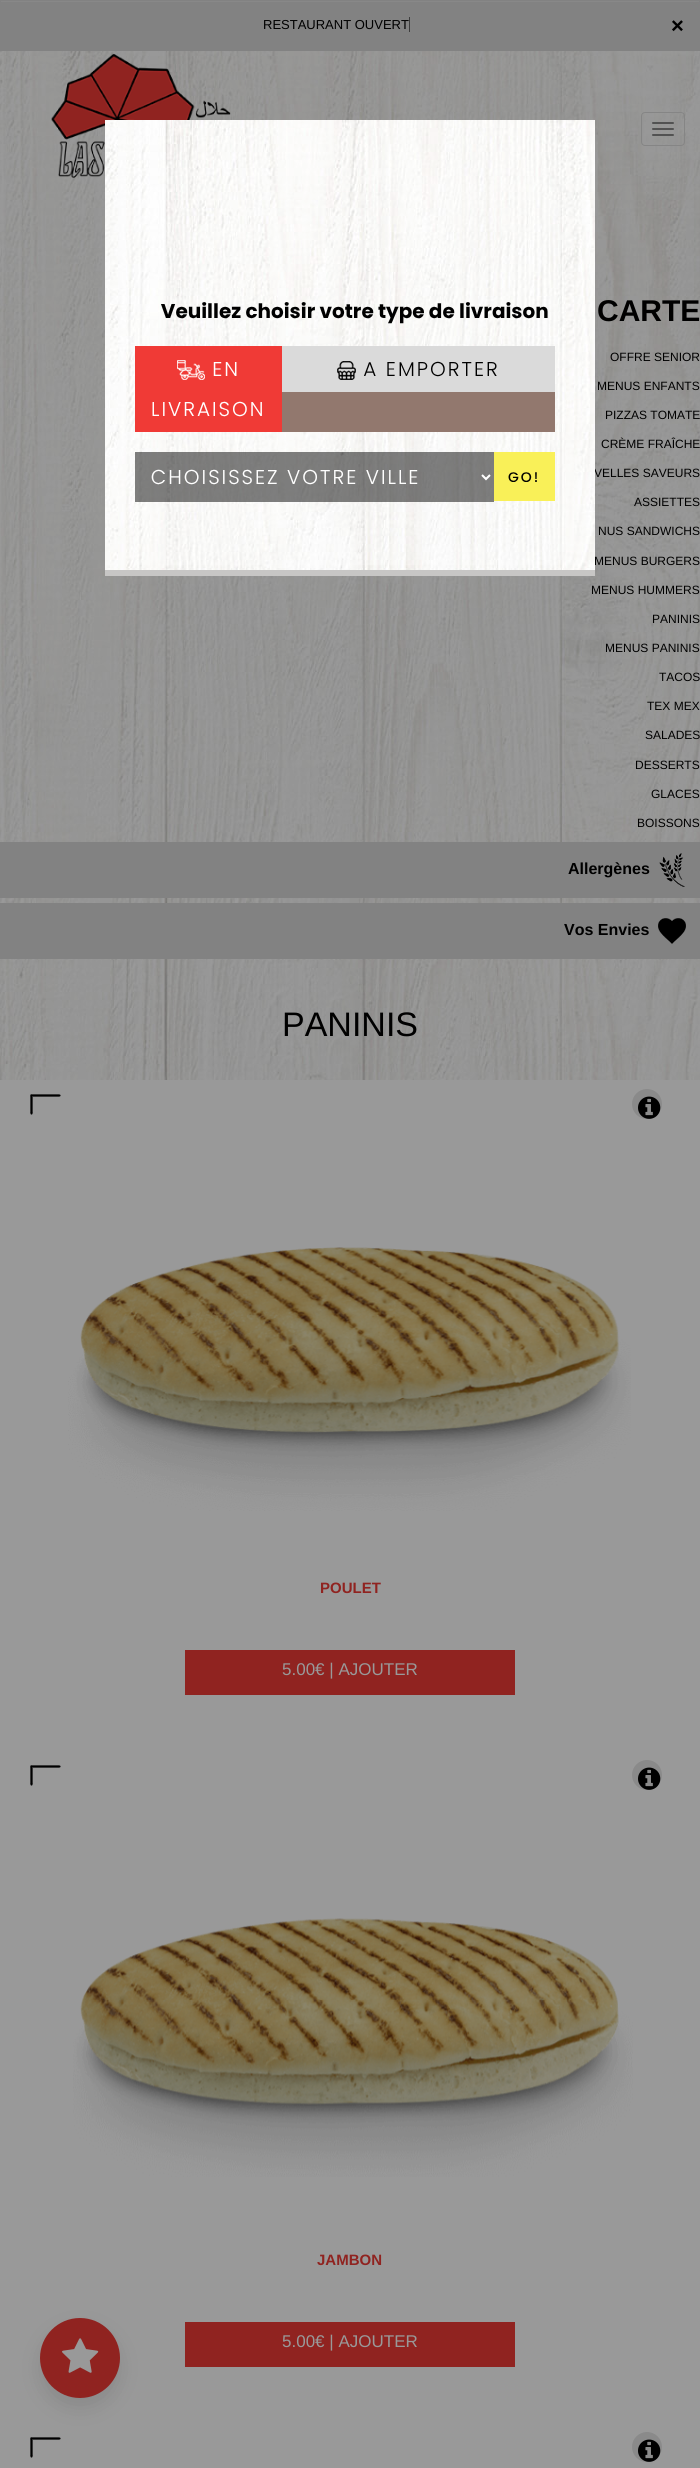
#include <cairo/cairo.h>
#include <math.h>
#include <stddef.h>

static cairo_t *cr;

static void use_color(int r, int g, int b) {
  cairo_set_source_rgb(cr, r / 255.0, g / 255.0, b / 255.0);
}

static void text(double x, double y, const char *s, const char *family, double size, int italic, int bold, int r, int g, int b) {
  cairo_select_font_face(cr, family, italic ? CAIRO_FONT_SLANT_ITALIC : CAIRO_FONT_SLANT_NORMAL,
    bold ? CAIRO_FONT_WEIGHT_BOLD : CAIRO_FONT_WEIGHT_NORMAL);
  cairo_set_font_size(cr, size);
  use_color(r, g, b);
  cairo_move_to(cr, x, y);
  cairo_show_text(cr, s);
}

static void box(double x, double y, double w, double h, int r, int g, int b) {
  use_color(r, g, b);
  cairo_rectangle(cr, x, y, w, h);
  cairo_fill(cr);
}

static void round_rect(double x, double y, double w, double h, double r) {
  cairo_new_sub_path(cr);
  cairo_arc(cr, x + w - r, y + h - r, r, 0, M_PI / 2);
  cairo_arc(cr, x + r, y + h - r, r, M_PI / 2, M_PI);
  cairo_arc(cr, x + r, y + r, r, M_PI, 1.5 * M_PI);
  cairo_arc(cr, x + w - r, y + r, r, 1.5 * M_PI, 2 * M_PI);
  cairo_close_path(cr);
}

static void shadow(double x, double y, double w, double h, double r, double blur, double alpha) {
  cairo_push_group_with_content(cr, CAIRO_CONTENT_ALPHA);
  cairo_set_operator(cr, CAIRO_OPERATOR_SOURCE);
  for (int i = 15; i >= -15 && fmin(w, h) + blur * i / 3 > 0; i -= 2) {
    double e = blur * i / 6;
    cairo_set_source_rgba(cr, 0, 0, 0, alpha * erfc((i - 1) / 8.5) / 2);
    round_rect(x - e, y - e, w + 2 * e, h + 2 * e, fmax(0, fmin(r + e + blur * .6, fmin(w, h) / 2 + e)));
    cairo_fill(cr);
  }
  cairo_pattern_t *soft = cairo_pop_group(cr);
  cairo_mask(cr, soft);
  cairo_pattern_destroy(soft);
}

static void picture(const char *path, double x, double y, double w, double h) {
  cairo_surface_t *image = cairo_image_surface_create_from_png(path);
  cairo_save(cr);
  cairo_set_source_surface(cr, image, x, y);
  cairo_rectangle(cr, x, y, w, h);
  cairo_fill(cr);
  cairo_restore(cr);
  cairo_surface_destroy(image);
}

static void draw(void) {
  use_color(153, 153, 153);
  cairo_paint(cr);
  picture("img_01.png", 0, 51, 700, 1029);
  box(0, 0, 700, 51, 130, 130, 130);
  box(1, 1, 698, 1, 136, 136, 136);
  box(409, 17, 1, 15, 61, 61, 61);
  box(105, 570, 490, 6, 199, 198, 197);
  picture("img_03.png", 51, 54, 180, 124);
  round_rect(641.5, 112.5, 43, 33, 3.5);
  use_color(133, 133, 133);
  cairo_set_line_width(cr, 1);
  cairo_stroke(cr);
  use_color(82, 82, 82);
  round_rect(652, 122, 22, 2, 1);
  cairo_fill(cr);
  round_rect(652, 128, 22, 2, 1);
  cairo_fill(cr);
  round_rect(652, 134, 22, 2, 1);
  cairo_fill(cr);
  box(0, 842, 700, 56, 130, 130, 130);
  picture("img_04.png", 659, 853, 26, 34);
  box(0, 903, 700, 56, 130, 130, 130);
  picture("img_05.png", 658, 918, 28, 26);
  picture("img_06.png", 30, 1094, 31, 21);
  use_color(138, 138, 138);
  cairo_arc(cr, 647, 1104, 15, 0, 2 * M_PI);
  cairo_fill(cr);
  picture("img_07.png", 638, 1096, 23, 23);
  picture("img_08.png", 68, 1247, 563, 264);
  box(185, 1650, 330, 45, 144, 35, 32);
  picture("img_06.png", 30, 2437, 31, 21);
  use_color(0, 0, 0);
  shadow(40, 2328, 80, 80, 40, 10, 0.1);
  use_color(144, 35, 32);
  cairo_arc(cr, 80, 2358, 40, 0, 2 * M_PI);
  cairo_fill(cr);
  picture("img_09.png", 62, 2338, 37, 35);
  picture("img_06.png", 30, 1765, 31, 21);
  use_color(138, 138, 138);
  cairo_arc(cr, 647, 1775, 15, 0, 2 * M_PI);
  cairo_fill(cr);
  picture("img_07.png", 638, 1767, 23, 23);
  picture("img_10.png", 73, 1918, 560, 259);
  box(185, 2322, 330, 45, 144, 35, 32);
  use_color(138, 138, 138);
  cairo_arc(cr, 647, 2447, 15, 0, 2 * M_PI);
  cairo_fill(cr);
  picture("img_07.png", 638, 2439, 23, 23);
  text(263, 29, "RESTAURANT OUVERT", "Liberation Sans", 13, 0, 0, 0, 0, 0);
  text(671, 33, "×", "Liberation Sans", 22, 0, 1, 0, 0, 0);
  text(597, 321, "CARTE", "Liberation Sans", 30, 0, 1, 0, 0, 0);
  text(610, 361, "OFFRE SENIOR", "Liberation Sans", 12, 0, 0, 0, 0, 0);
  text(597, 390, "MENUS ENFANTS", "Liberation Sans", 12, 0, 0, 0, 0, 0);
  text(605, 419, "PIZZAS TOMATE", "Liberation Sans", 12, 0, 0, 0, 0, 0);
  text(601, 448, "CRÈME FRAÎCHE", "Liberation Sans", 12, 0, 0, 0, 0, 0);
  text(594, 477, "VELLES SAVEURS", "Liberation Sans", 12, 0, 0, 0, 0, 0);
  text(634, 506, "ASSIETTES", "Liberation Sans", 12, 0, 0, 0, 0, 0);
  text(598, 535, "NUS SANDWICHS", "Liberation Sans", 12, 0, 0, 0, 0, 0);
  text(594, 565, "MENUS BURGERS", "Liberation Sans", 12, 0, 0, 0, 0, 0);
  picture("img_02.png", 105, 120, 490, 450);
  text(591, 594, "MENUS HUMMERS", "Liberation Sans", 12, 0, 0, 0, 0, 0);
  text(652, 623, "PANINIS", "Liberation Sans", 12, 0, 0, 0, 0, 0);
  text(605, 652, "MENUS PANINIS", "Liberation Sans", 12, 0, 0, 0, 0, 0);
  text(659, 681, "TACOS", "Liberation Sans", 12, 0, 0, 0, 0, 0);
  text(647, 710, "TEX MEX", "Liberation Sans", 12, 0, 0, 0, 0, 0);
  text(645, 739, "SALADES", "Liberation Sans", 12, 0, 0, 0, 0, 0);
  text(635, 769, "DESSERTS", "Liberation Sans", 12, 0, 0, 0, 0, 0);
  text(651, 798, "GLACES", "Liberation Sans", 12, 0, 0, 0, 0, 0);
  text(637, 827, "BOISSONS", "Liberation Sans", 12, 0, 0, 0, 0, 0);
  text(568, 874, "Allergènes", "Liberation Sans", 16, 0, 1, 0, 0, 0);
  text(564, 935, "Vos Envies", "Liberation Sans", 16, 0, 1, 0, 0, 0);
  text(282, 1036, "PANINIS", "Liberation Sans", 34, 0, 0, 0, 0, 0);
  text(320, 1593, "POULET", "Liberation Sans", 15, 0, 1, 144, 35, 32);
  text(282, 1675, "5.00€ | AJOUTER", "Liberation Sans", 17, 0, 0, 153, 153, 153);
  text(317, 2265, "JAMBON", "Liberation Sans", 15, 0, 1, 144, 35, 32);
  text(282, 2347, "5.00€ | AJOUTER", "Liberation Sans", 17, 0, 0, 153, 153, 153);
}

int main(void) {
  cairo_surface_t *surface = cairo_image_surface_create(CAIRO_FORMAT_RGB24, 700, 2468);
  cr = cairo_create(surface);
  cairo_font_options_t *options = cairo_font_options_create();
  cairo_font_options_set_hint_metrics(options, CAIRO_HINT_METRICS_OFF);
  cairo_font_options_set_hint_style(options, CAIRO_HINT_STYLE_NONE);
  cairo_set_font_options(cr, options);
  cairo_set_miter_limit(cr, 4);
  draw();
  cairo_surface_write_to_png(surface, "out.png");
  cairo_font_options_destroy(options);
  cairo_destroy(cr);
  cairo_surface_destroy(surface);
  return 0;
}
